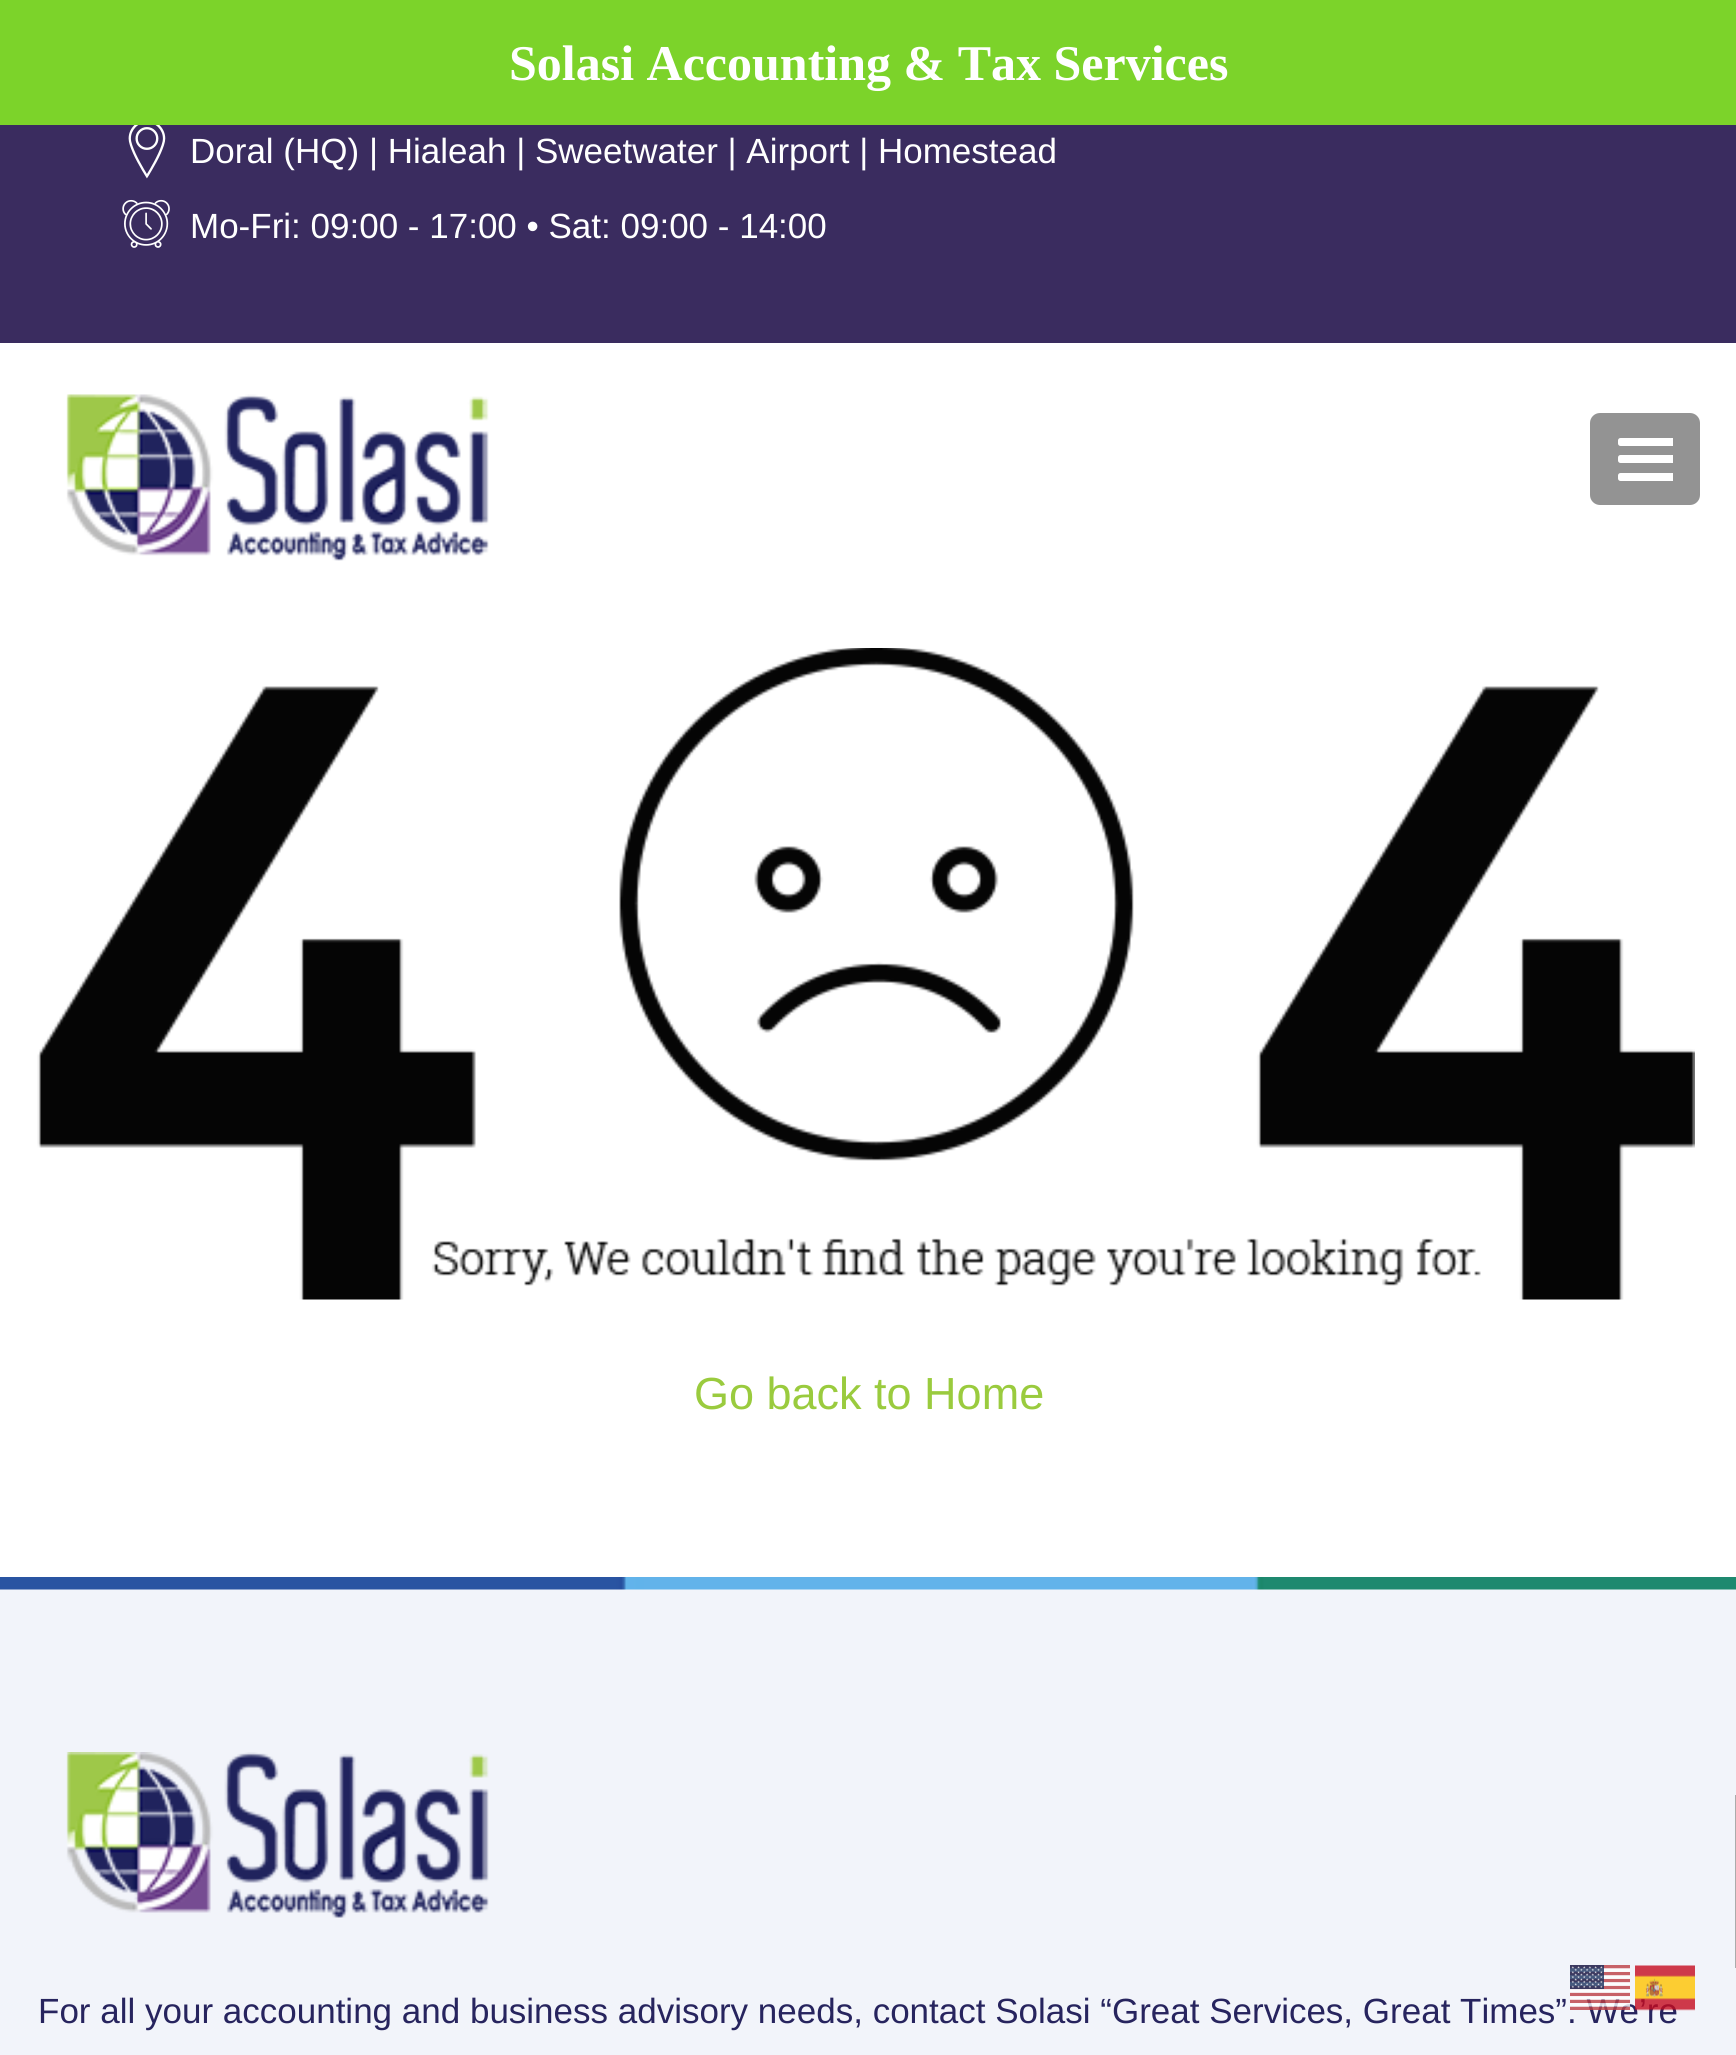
#include <cairo/cairo.h>
#include <math.h>
#include <stddef.h>

static cairo_t *cr;

static void use_color(int r, int g, int b) {
  cairo_set_source_rgb(cr, r / 255.0, g / 255.0, b / 255.0);
}

static void text(double x, double y, const char *s, const char *family, double size, int italic, int bold, int r, int g, int b) {
  cairo_select_font_face(cr, family, italic ? CAIRO_FONT_SLANT_ITALIC : CAIRO_FONT_SLANT_NORMAL,
    bold ? CAIRO_FONT_WEIGHT_BOLD : CAIRO_FONT_WEIGHT_NORMAL);
  cairo_set_font_size(cr, size);
  use_color(r, g, b);
  cairo_move_to(cr, x, y);
  cairo_show_text(cr, s);
}

static void box(double x, double y, double w, double h, int r, int g, int b) {
  use_color(r, g, b);
  cairo_rectangle(cr, x, y, w, h);
  cairo_fill(cr);
}

static void round_rect(double x, double y, double w, double h, double r) {
  cairo_new_sub_path(cr);
  cairo_arc(cr, x + w - r, y + h - r, r, 0, M_PI / 2);
  cairo_arc(cr, x + r, y + h - r, r, M_PI / 2, M_PI);
  cairo_arc(cr, x + r, y + r, r, M_PI, 1.5 * M_PI);
  cairo_arc(cr, x + w - r, y + r, r, 1.5 * M_PI, 2 * M_PI);
  cairo_close_path(cr);
}

static void picture(const char *path, double x, double y, double w, double h) {
  cairo_surface_t *image = cairo_image_surface_create_from_png(path);
  cairo_save(cr);
  cairo_set_source_surface(cr, image, x, y);
  cairo_rectangle(cr, x, y, w, h);
  cairo_fill(cr);
  cairo_restore(cr);
  cairo_surface_destroy(image);
}

static void draw(void) {
  use_color(255, 255, 255);
  cairo_paint(cr);
  box(0, 0, 1736, 125, 124, 211, 42);
  box(0, 125, 1736, 218, 58, 44, 95);
  picture("img_01.png", 128, 125, 38, 54);
  picture("img_02.png", 122, 199, 48, 49);
  picture("img_03.png", 66, 394, 423, 167);
  use_color(147, 147, 147);
  round_rect(1590, 413, 110, 92, 10);
  cairo_fill(cr);
  use_color(255, 255, 255);
  round_rect(1618, 438, 55, 8, 2.5);
  cairo_fill(cr);
  box(1671, 438, 2, 8, 255, 255, 255);
  round_rect(1618, 455, 55, 8, 2.5);
  cairo_fill(cr);
  box(1671, 455, 2, 8, 255, 255, 255);
  round_rect(1618, 473, 55, 8, 2.5);
  cairo_fill(cr);
  box(1671, 473, 2, 8, 255, 255, 255);
  picture("img_04.png", 37, 648, 1658, 652);
  box(0, 1589, 1736, 466, 242, 244, 250);
  picture("img_07.png", 0, 1577, 1736, 13);
  picture("img_08.png", 66, 1752, 423, 166);
  box(1735, 1795, 1, 173, 171, 171, 171);
  text(509, 80, "Solasi Accounting & Tax Services", "Liberation Serif", 50, 0, 1, 255, 255, 255);
  text(190, 163, "Doral (HQ) | Hialeah | Sweetwater | Airport | Homestead", "Liberation Sans", 35, 0, 0, 255, 255, 255);
  text(190, 238, "Mo-Fri: 09:00 - 17:00 • Sat: 09:00 - 14:00", "Liberation Sans", 35, 0, 0, 255, 255, 255);
  text(694, 1409, "Go back to Home", "Liberation Sans", 45, 0, 0, 154, 203, 62);
  text(38, 2023, "For all your accounting and business advisory needs, contact Solasi “Great Services, Great Times”. We’re", "Liberation Sans", 35, 0, 0, 39, 36, 94);
  picture("img_06.png", 1635, 1965, 60, 46);
  picture("img_05.png", 1570, 1965, 60, 45);
}

int main(void) {
  cairo_surface_t *surface = cairo_image_surface_create(CAIRO_FORMAT_RGB24, 1736, 2055);
  cr = cairo_create(surface);
  cairo_font_options_t *options = cairo_font_options_create();
  cairo_font_options_set_hint_metrics(options, CAIRO_HINT_METRICS_OFF);
  cairo_font_options_set_hint_style(options, CAIRO_HINT_STYLE_NONE);
  cairo_set_font_options(cr, options);
  cairo_set_miter_limit(cr, 4);
  draw();
  cairo_surface_write_to_png(surface, "out.png");
  cairo_font_options_destroy(options);
  cairo_destroy(cr);
  cairo_surface_destroy(surface);
  return 0;
}
